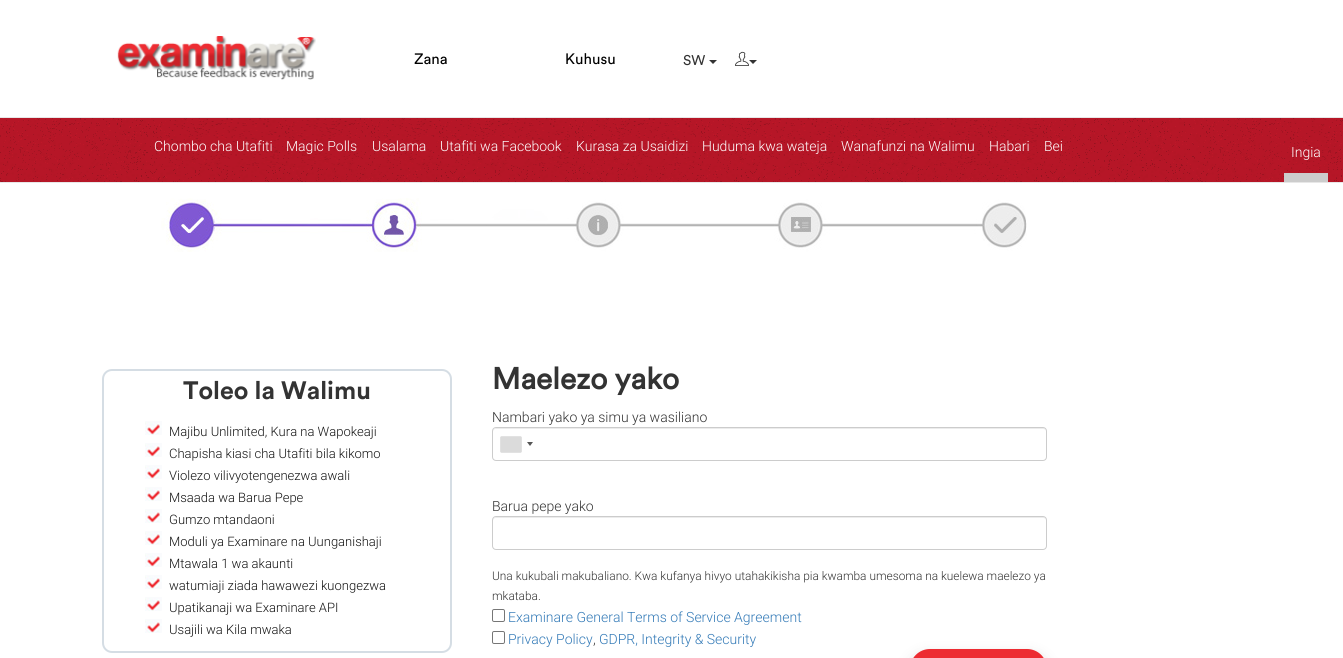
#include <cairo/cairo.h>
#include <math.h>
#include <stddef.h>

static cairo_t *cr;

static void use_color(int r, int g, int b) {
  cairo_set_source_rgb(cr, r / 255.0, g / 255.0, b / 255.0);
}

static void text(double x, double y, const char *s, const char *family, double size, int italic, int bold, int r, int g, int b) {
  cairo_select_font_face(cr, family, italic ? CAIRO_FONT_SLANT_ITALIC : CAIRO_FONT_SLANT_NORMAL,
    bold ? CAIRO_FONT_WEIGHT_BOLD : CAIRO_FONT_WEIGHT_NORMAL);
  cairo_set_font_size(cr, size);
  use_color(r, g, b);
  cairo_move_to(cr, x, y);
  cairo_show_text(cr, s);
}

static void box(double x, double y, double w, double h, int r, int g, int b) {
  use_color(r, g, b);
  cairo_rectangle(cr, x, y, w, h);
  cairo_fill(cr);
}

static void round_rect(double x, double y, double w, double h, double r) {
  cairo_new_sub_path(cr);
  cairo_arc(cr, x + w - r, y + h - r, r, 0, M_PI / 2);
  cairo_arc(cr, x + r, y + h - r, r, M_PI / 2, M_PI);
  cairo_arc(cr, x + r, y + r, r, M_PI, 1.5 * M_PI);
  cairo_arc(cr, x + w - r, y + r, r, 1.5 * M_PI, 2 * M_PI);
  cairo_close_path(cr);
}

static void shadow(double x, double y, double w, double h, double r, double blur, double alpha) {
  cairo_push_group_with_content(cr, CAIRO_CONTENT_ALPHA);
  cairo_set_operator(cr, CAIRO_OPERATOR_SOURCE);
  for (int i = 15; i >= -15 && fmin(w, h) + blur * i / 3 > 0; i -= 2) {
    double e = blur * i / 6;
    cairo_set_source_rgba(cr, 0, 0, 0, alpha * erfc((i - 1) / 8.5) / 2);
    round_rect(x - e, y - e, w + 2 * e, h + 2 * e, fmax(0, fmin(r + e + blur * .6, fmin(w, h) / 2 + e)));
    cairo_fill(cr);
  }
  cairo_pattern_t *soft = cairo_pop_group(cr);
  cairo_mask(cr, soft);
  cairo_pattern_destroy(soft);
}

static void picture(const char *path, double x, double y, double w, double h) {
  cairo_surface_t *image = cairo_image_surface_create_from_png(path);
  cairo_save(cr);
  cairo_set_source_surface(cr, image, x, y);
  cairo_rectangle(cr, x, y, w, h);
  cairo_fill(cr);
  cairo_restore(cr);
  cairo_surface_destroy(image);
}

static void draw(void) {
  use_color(255, 255, 255);
  cairo_paint(cr);
  box(0, 117, 1343, 1, 231, 231, 231);
  picture("img_01.png", 117, 36, 199, 44);
  use_color(51, 51, 51);
  cairo_new_path(cr);
  cairo_move_to(cr, 709, 60);
  cairo_line_to(cr, 717, 60);
  cairo_line_to(cr, 713, 64);
  cairo_close_path(cr);
  cairo_fill(cr);
  picture("img_02.png", 735, 51, 14, 15);
  cairo_new_path(cr);
  cairo_move_to(cr, 749, 60);
  cairo_line_to(cr, 757, 60);
  cairo_line_to(cr, 753, 64);
  cairo_close_path(cr);
  cairo_fill(cr);
  box(0, 182, 1343, 1, 231, 231, 231);
  picture("img_03.png", 0, 118, 1343, 64);
  picture("img_04.png", 147, 118, 132, 49);
  picture("img_05.png", 279, 118, 86, 49);
  picture("img_06.png", 365, 118, 68, 49);
  picture("img_07.png", 433, 118, 136, 49);
  picture("img_08.png", 569, 118, 126, 49);
  picture("img_09.png", 695, 118, 139, 49);
  picture("img_10.png", 834, 118, 148, 49);
  picture("img_11.png", 982, 118, 55, 49);
  picture("img_12.png", 1037, 118, 33, 49);
  box(1284, 173, 44, 9, 204, 204, 204);
  picture("img_13.png", 1284, 118, 44, 55);
  picture("img_14.png", 161, 198, 866, 54);
  round_rect(103, 370, 348, 282, 9);
  use_color(213, 221, 228);
  cairo_stroke(cr);
  picture("img_15.png", 145, 421, 17, 14);
  picture("img_15.png", 145, 443, 17, 14);
  picture("img_15.png", 145, 465, 17, 14);
  picture("img_15.png", 145, 487, 17, 14);
  picture("img_15.png", 145, 509, 17, 14);
  picture("img_15.png", 145, 531, 17, 14);
  picture("img_15.png", 145, 553, 17, 14);
  picture("img_15.png", 145, 575, 17, 14);
  picture("img_15.png", 145, 597, 17, 14);
  picture("img_15.png", 145, 619, 17, 14);
  use_color(236, 236, 236);
  cairo_new_path(cr);
  cairo_move_to(cr, 496, 429);
  cairo_line_to(cr, 1043, 429);
  cairo_curve_to(cr, 1045, 429, 1046, 430, 1046, 432);
  cairo_curve_to(cr, 1046, 430, 1045, 428, 1043, 428);
  cairo_line_to(cr, 496, 428);
  cairo_line_to(cr, 494, 429);
  cairo_line_to(cr, 493, 430);
  cairo_line_to(cr, 493, 432);
  cairo_curve_to(cr, 493, 430, 494, 429, 496, 429);
  cairo_close_path(cr);
  cairo_fill(cr);
  round_rect(492.5, 427.5, 554, 33, 3.5);
  use_color(204, 204, 204);
  cairo_set_line_width(cr, 1);
  cairo_stroke(cr);
  use_color(136, 136, 136);
  shadow(501, 437, 20, 15, 0, 0.5, 1);
  box(501, 437, 20, 15, 219, 219, 219);
  use_color(85, 85, 85);
  cairo_new_path(cr);
  cairo_move_to(cr, 527, 442);
  cairo_line_to(cr, 533, 442);
  cairo_line_to(cr, 530, 446);
  cairo_close_path(cr);
  cairo_fill(cr);
  use_color(236, 236, 236);
  cairo_new_path(cr);
  cairo_move_to(cr, 496, 518);
  cairo_line_to(cr, 1043, 518);
  cairo_curve_to(cr, 1045, 518, 1046, 519, 1046, 521);
  cairo_curve_to(cr, 1046, 519, 1045, 517, 1043, 517);
  cairo_line_to(cr, 496, 517);
  cairo_line_to(cr, 494, 518);
  cairo_line_to(cr, 493, 519);
  cairo_line_to(cr, 493, 521);
  cairo_curve_to(cr, 493, 519, 494, 518, 496, 518);
  cairo_close_path(cr);
  cairo_fill(cr);
  round_rect(492.5, 516.5, 554, 33, 3.5);
  use_color(204, 204, 204);
  cairo_stroke(cr);
  round_rect(492.5, 609.5, 12, 12, 1.5);
  use_color(118, 118, 118);
  cairo_stroke(cr);
  round_rect(492.5, 631.5, 12, 12, 1.5);
  cairo_stroke(cr);
  use_color(0, 0, 0);
  shadow(910, 657, 137, 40, 20, 7.5, 0.2);
  use_color(237, 44, 50);
  round_rect(910, 649, 137, 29, 20);
  cairo_fill(cr);
  text(414, 64, "Zana", "Circular", 15, 0, 0, 0, 0, 0);
  text(565, 64, "Kuhusu", "Circular", 15, 0, 0, 0, 0, 0);
  text(683, 65, "SW", "Circular", 14, 0, 0, 51, 51, 51);
  text(154, 151, "Chombo cha Utafiti", "Roboto Light", 14, 0, 0, 255, 255, 255);
  text(286, 151, "Magic Polls", "Roboto Light", 14, 0, 0, 255, 255, 255);
  text(372, 151, "Usalama", "Roboto Light", 14, 0, 0, 255, 255, 255);
  text(440, 151, "Utafiti wa Facebook", "Roboto Light", 14, 0, 0, 255, 255, 255);
  text(576, 151, "Kurasa za Usaidizi", "Roboto Light", 14, 0, 0, 255, 255, 255);
  text(702, 151, "Huduma kwa wateja", "Roboto Light", 14, 0, 0, 255, 255, 255);
  text(841, 151, "Wanafunzi na Walimu", "Roboto Light", 14, 0, 0, 255, 255, 255);
  text(989, 151, "Habari", "Roboto Light", 14, 0, 0, 255, 255, 255);
  text(1044, 151, "Bei", "Roboto Light", 14, 0, 0, 255, 255, 255);
  text(1291, 157, "Ingia", "Roboto Light", 14, 0, 0, 255, 255, 255);
  text(183, 399, "Toleo la Walimu", "Circular", 25, 0, 1, 51, 51, 51);
  text(169, 436, "Majibu Unlimited, Kura na Wapokeaji", "Roboto Light", 13, 0, 0, 20, 20, 20);
  text(169, 458, "Chapisha kiasi cha Utafiti bila kikomo", "Roboto Light", 13, 0, 0, 20, 20, 20);
  text(169, 480, "Violezo vilivyotengenezwa awali", "Roboto Light", 13, 0, 0, 20, 20, 20);
  text(169, 502, "Msaada wa Barua Pepe", "Roboto Light", 13, 0, 0, 20, 20, 20);
  text(169, 524, "Gumzo mtandaoni", "Roboto Light", 13, 0, 0, 20, 20, 20);
  text(169, 546, "Moduli ya Examinare na Uunganishaji", "Roboto Light", 13, 0, 0, 20, 20, 20);
  text(169, 568, "Mtawala 1 wa akaunti", "Roboto Light", 13, 0, 0, 20, 20, 20);
  text(169, 590, "watumiaji ziada hawawezi kuongezwa", "Roboto Light", 13, 0, 0, 20, 20, 20);
  text(169, 612, "Upatikanaji wa Examinare API", "Roboto Light", 13, 0, 0, 20, 20, 20);
  text(169, 634, "Usajili wa Kila mwaka", "Roboto Light", 13, 0, 0, 20, 20, 20);
  text(492, 389, "Maelezo yako", "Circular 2", 30, 0, 1, 51, 51, 51);
  text(492, 422, "Nambari yako ya simu ya wasiliano", "Roboto Light", 14, 0, 0, 51, 51, 51);
  text(492, 511, "Barua pepe yako", "Roboto Light", 14, 0, 0, 51, 51, 51);
  text(492, 580, "Una kukubali makubaliano. Kwa kufanya hivyo utahakikisha pia kwamba umesoma na kuelewa maelezo ya", "Roboto Light", 11.9, 0, 0, 51, 51, 51);
  text(492, 600, "mkataba.", "Roboto Light", 11.9, 0, 0, 51, 51, 51);
  text(508, 622, "Examinare General Terms of Service Agreement", "Roboto Light", 14, 0, 0, 51, 122, 183);
  text(508, 644, "Privacy Policy", "Roboto Light", 14, 0, 0, 51, 122, 183);
  text(593, 644, ",", "Roboto Light", 14, 0, 0, 51, 51, 51);
  text(599, 644, "GDPR, Integrity & Security", "Roboto Light", 14, 0, 0, 51, 122, 183);
}

int main(void) {
  cairo_surface_t *surface = cairo_image_surface_create(CAIRO_FORMAT_RGB24, 1343, 658);
  cr = cairo_create(surface);
  cairo_font_options_t *options = cairo_font_options_create();
  cairo_font_options_set_hint_metrics(options, CAIRO_HINT_METRICS_OFF);
  cairo_font_options_set_hint_style(options, CAIRO_HINT_STYLE_NONE);
  cairo_set_font_options(cr, options);
  cairo_set_miter_limit(cr, 4);
  draw();
  cairo_surface_write_to_png(surface, "out.png");
  cairo_font_options_destroy(options);
  cairo_destroy(cr);
  cairo_surface_destroy(surface);
  return 0;
}
